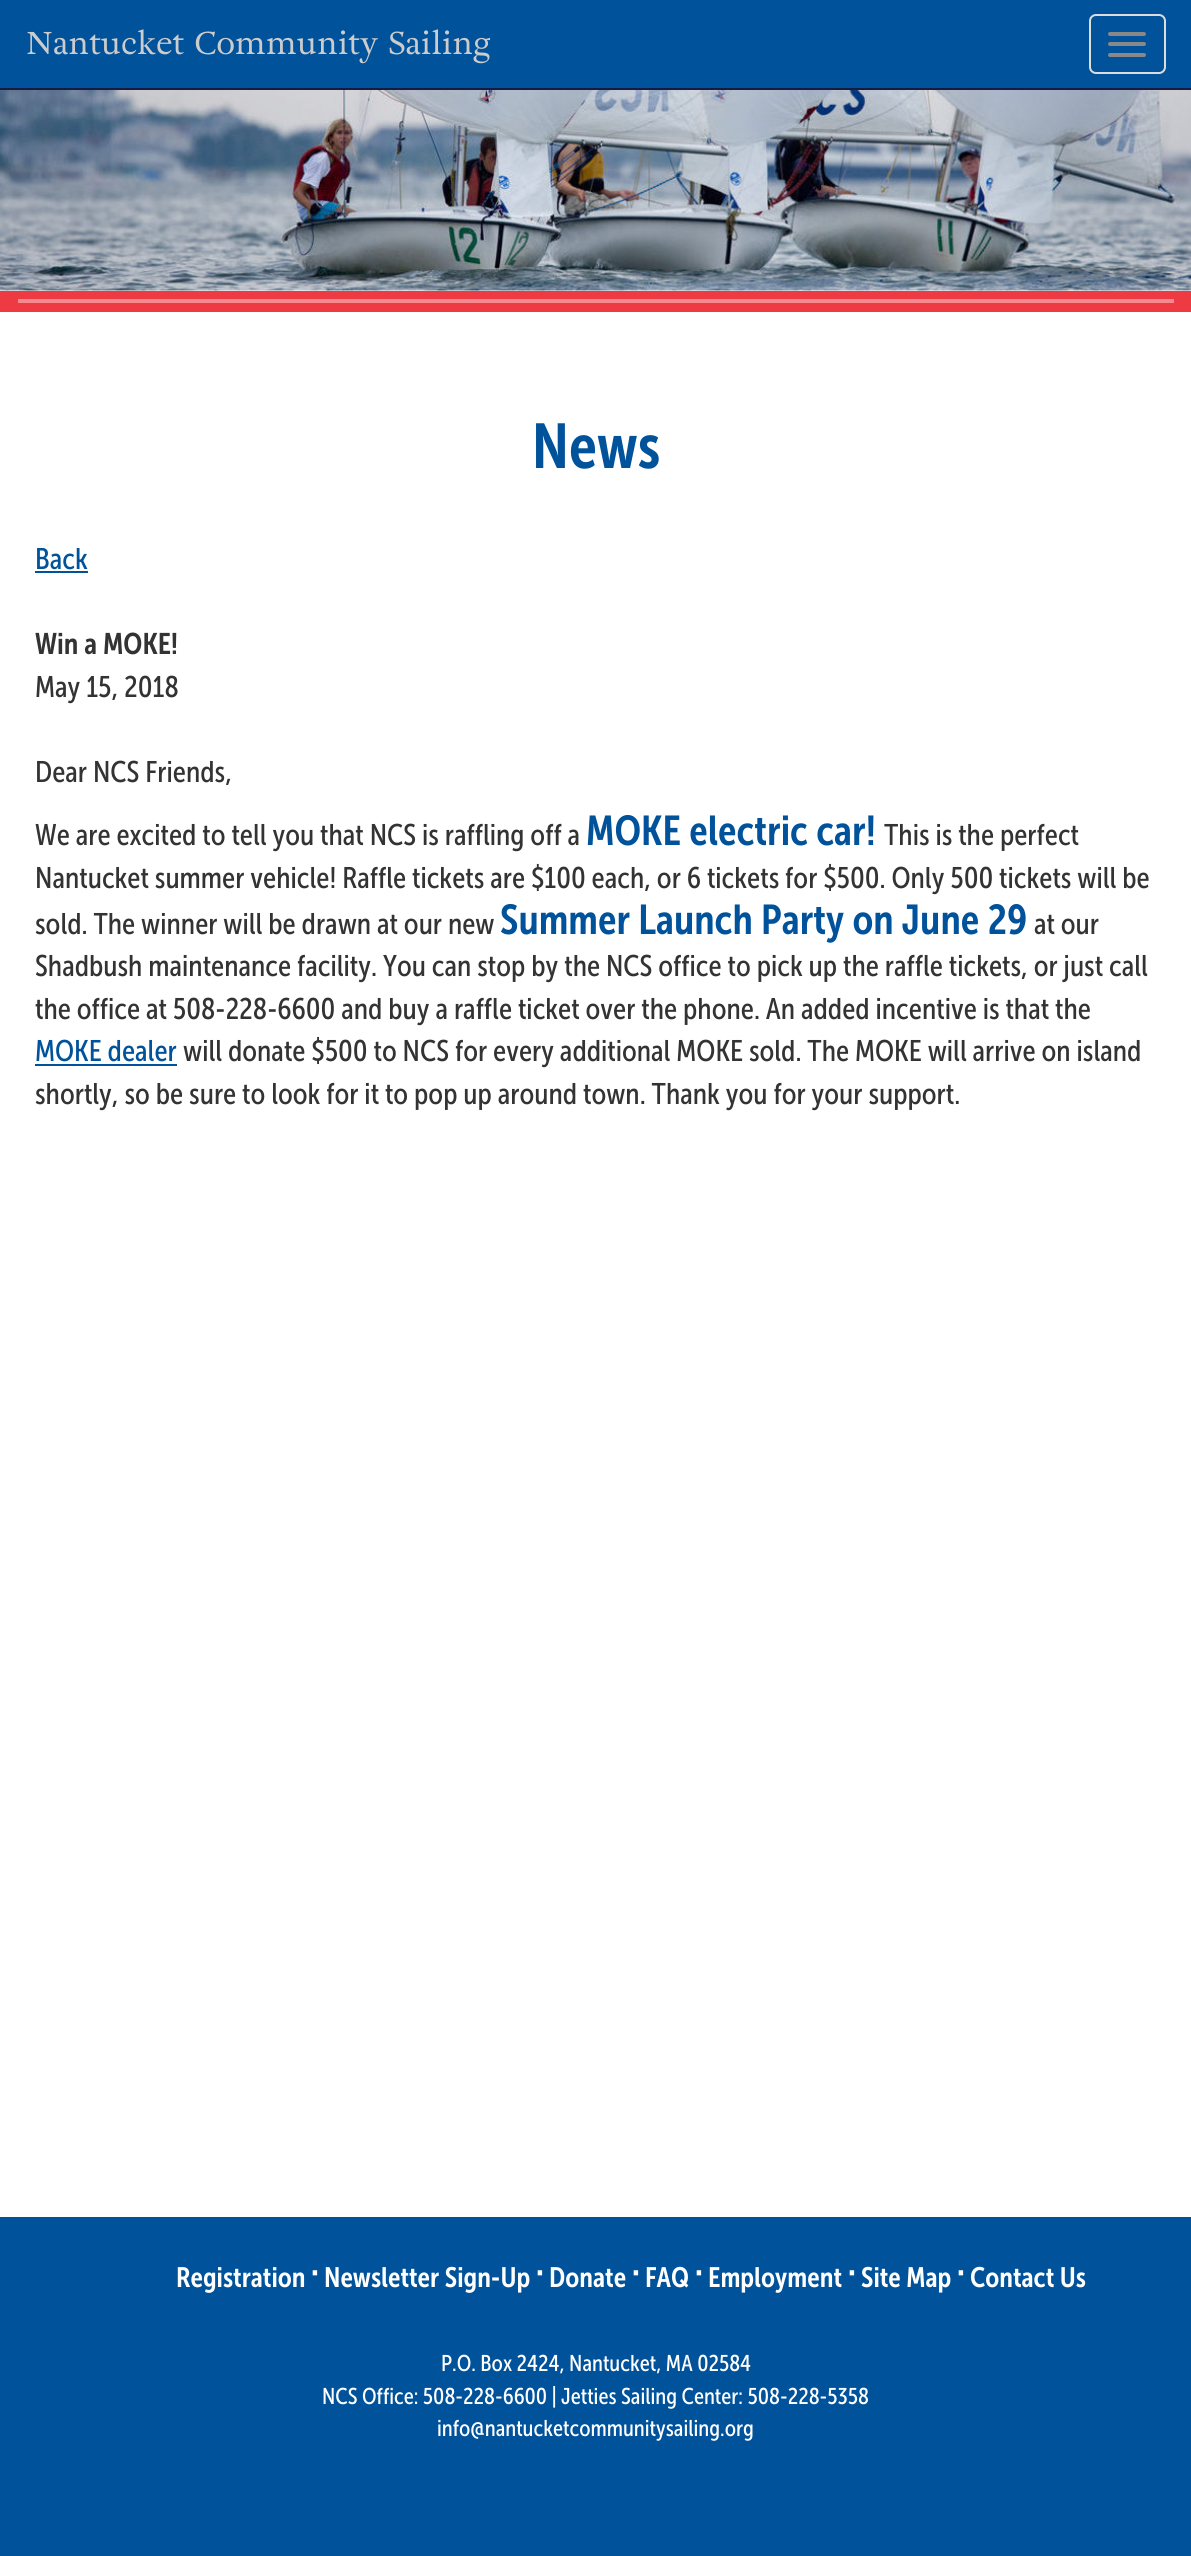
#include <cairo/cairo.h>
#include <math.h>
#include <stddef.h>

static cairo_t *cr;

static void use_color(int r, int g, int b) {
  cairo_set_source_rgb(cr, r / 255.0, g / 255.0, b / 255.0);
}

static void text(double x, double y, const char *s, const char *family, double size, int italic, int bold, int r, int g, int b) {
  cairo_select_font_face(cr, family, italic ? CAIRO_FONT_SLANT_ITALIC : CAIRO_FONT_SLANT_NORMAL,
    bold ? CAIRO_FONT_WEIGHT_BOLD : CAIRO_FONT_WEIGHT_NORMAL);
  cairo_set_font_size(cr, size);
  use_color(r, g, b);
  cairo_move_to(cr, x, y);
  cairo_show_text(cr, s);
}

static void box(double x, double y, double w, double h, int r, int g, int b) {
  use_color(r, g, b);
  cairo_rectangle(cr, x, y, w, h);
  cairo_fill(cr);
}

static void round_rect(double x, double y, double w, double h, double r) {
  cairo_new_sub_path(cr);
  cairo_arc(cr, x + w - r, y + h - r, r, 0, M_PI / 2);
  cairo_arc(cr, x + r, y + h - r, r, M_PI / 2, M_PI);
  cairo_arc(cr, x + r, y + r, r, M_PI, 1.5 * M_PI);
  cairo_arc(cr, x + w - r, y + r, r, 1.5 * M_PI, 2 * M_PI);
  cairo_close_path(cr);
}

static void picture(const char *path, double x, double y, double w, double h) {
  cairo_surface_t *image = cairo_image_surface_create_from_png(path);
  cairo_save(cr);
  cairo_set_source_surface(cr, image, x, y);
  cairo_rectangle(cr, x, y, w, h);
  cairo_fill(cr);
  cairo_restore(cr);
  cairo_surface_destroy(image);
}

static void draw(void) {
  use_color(255, 255, 255);
  cairo_paint(cr);
  box(0, 0, 1191, 88, 0, 82, 155);
  box(0, 88, 1191, 2, 23, 27, 68);
  round_rect(1090, 15, 75, 58, 6);
  use_color(221, 221, 221);
  cairo_stroke(cr);
  use_color(136, 136, 136);
  round_rect(1108, 32, 38, 4, 2);
  cairo_fill(cr);
  round_rect(1108, 42, 38, 4, 2);
  cairo_fill(cr);
  round_rect(1108, 53, 38, 4, 2);
  cairo_fill(cr);
  picture("img_01.png", 0, 90, 1191, 201);
  box(0, 291, 1191, 21, 238, 58, 67);
  box(18, 299, 1156, 4, 245, 137, 142);
  box(35, 571, 53, 2, 0, 82, 155);
  box(35, 1064, 142, 2, 0, 82, 155);
  box(0, 2217, 1191, 339, 0, 82, 155);
  text(26, 54, "Nantucket Community Sailing", "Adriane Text", 31.5, 0, 0, 204, 204, 204);
  text(532, 468, "News", "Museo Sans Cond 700 SemiBold", 63, 0, 0, 0, 82, 155);
  text(35, 569, "Back", "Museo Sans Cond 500", 29.75, 0, 0, 0, 82, 155);
  text(35, 654, "Win a MOKE!", "Museo Sans Cond 700 SemiBold", 29.75, 0, 0, 51, 51, 51);
  text(35, 697, "May 15, 2018", "Museo Sans Cond 500", 29.75, 0, 0, 51, 51, 51);
  text(35, 782, "Dear NCS Friends,", "Museo Sans Cond 500", 29.75, 0, 0, 51, 51, 51);
  text(35, 845, "We are excited to tell you that NCS is raffling off a", "Museo Sans Cond 500", 29.75, 0, 0, 51, 51, 51);
  text(586, 845, "MOKE electric car!", "Museo Sans Cond 700 SemiBold", 41.6, 0, 0, 0, 82, 155);
  text(884, 845, "This is the perfect", "Museo Sans Cond 500", 29.75, 0, 0, 51, 51, 51);
  text(35, 888, "Nantucket summer vehicle! Raffle tickets are $100 each, or 6 tickets for $500. Only 500 tickets will be", "Museo Sans Cond 500", 29.75, 0, 0, 51, 51, 51);
  text(35, 934, "sold. The winner will be drawn at our new", "Museo Sans Cond 500", 29.75, 0, 0, 51, 51, 51);
  text(500, 934, "Summer Launch Party on June 29", "Museo Sans Cond 700 SemiBold", 41.6, 0, 0, 0, 82, 155);
  text(1034, 934, "at our", "Museo Sans Cond 500", 29.75, 0, 0, 51, 51, 51);
  text(35, 976, "Shadbush maintenance facility. You can stop by the NCS office to pick up the raffle tickets, or just call", "Museo Sans Cond 500", 29.75, 0, 0, 51, 51, 51);
  text(35, 1019, "the office at 508-228-6600 and buy a raffle ticket over the phone. An added incentive is that the", "Museo Sans Cond 500", 29.75, 0, 0, 51, 51, 51);
  text(35, 1061, "MOKE dealer", "Museo Sans Cond 500", 29.75, 0, 0, 0, 82, 155);
  text(183, 1061, "will donate $500 to NCS for every additional MOKE sold. The MOKE will arrive on island", "Museo Sans Cond 500", 29.75, 0, 0, 51, 51, 51);
  text(35, 1104, "shortly, so be sure to look for it to pop up around town. Thank you for your support.", "Museo Sans Cond 500", 29.75, 0, 0, 51, 51, 51);
  text(176, 2287, "Registration", "Museo Sans Cond 700 SemiBold", 28, 0, 0, 255, 255, 255);
  text(310, 2287, "·", "Museo Sans Cond 500", 49, 0, 0, 255, 255, 255);
  text(324, 2287, "Newsletter Sign-Up", "Museo Sans Cond 700 SemiBold", 28, 0, 0, 255, 255, 255);
  text(535, 2287, "·", "Museo Sans Cond 500", 49, 0, 0, 255, 255, 255);
  text(549, 2287, "Donate", "Museo Sans Cond 700 SemiBold", 28, 0, 0, 255, 255, 255);
  text(631, 2287, "·", "Museo Sans Cond 500", 49, 0, 0, 255, 255, 255);
  text(645, 2287, "FAQ", "Museo Sans Cond 700 SemiBold", 28, 0, 0, 255, 255, 255);
  text(694, 2287, "·", "Museo Sans Cond 500", 49, 0, 0, 255, 255, 255);
  text(708, 2287, "Employment", "Museo Sans Cond 700 SemiBold", 28, 0, 0, 255, 255, 255);
  text(847, 2287, "·", "Museo Sans Cond 500", 49, 0, 0, 255, 255, 255);
  text(861, 2287, "Site Map", "Museo Sans Cond 700 SemiBold", 28, 0, 0, 255, 255, 255);
  text(956, 2287, "·", "Museo Sans Cond 500", 49, 0, 0, 255, 255, 255);
  text(970, 2287, "Contact Us", "Museo Sans Cond 700 SemiBold", 28, 0, 0, 255, 255, 255);
  text(441, 2371, "P.O. Box 2424, Nantucket, MA 02584", "Museo Sans Cond 500", 22.75, 0, 0, 255, 255, 255);
  text(322, 2404, "NCS Office: 508-228-6600 | Jetties Sailing Center: 508-228-5358", "Museo Sans Cond 500", 22.75, 0, 0, 255, 255, 255);
  text(437, 2436, "info@nantucketcommunitysailing.org", "Museo Sans Cond 500", 22.75, 0, 0, 255, 255, 255);
}

int main(void) {
  cairo_surface_t *surface = cairo_image_surface_create(CAIRO_FORMAT_RGB24, 1191, 2556);
  cr = cairo_create(surface);
  cairo_font_options_t *options = cairo_font_options_create();
  cairo_font_options_set_hint_metrics(options, CAIRO_HINT_METRICS_OFF);
  cairo_font_options_set_hint_style(options, CAIRO_HINT_STYLE_NONE);
  cairo_set_font_options(cr, options);
  cairo_set_miter_limit(cr, 4);
  draw();
  cairo_surface_write_to_png(surface, "out.png");
  cairo_font_options_destroy(options);
  cairo_destroy(cr);
  cairo_surface_destroy(surface);
  return 0;
}
